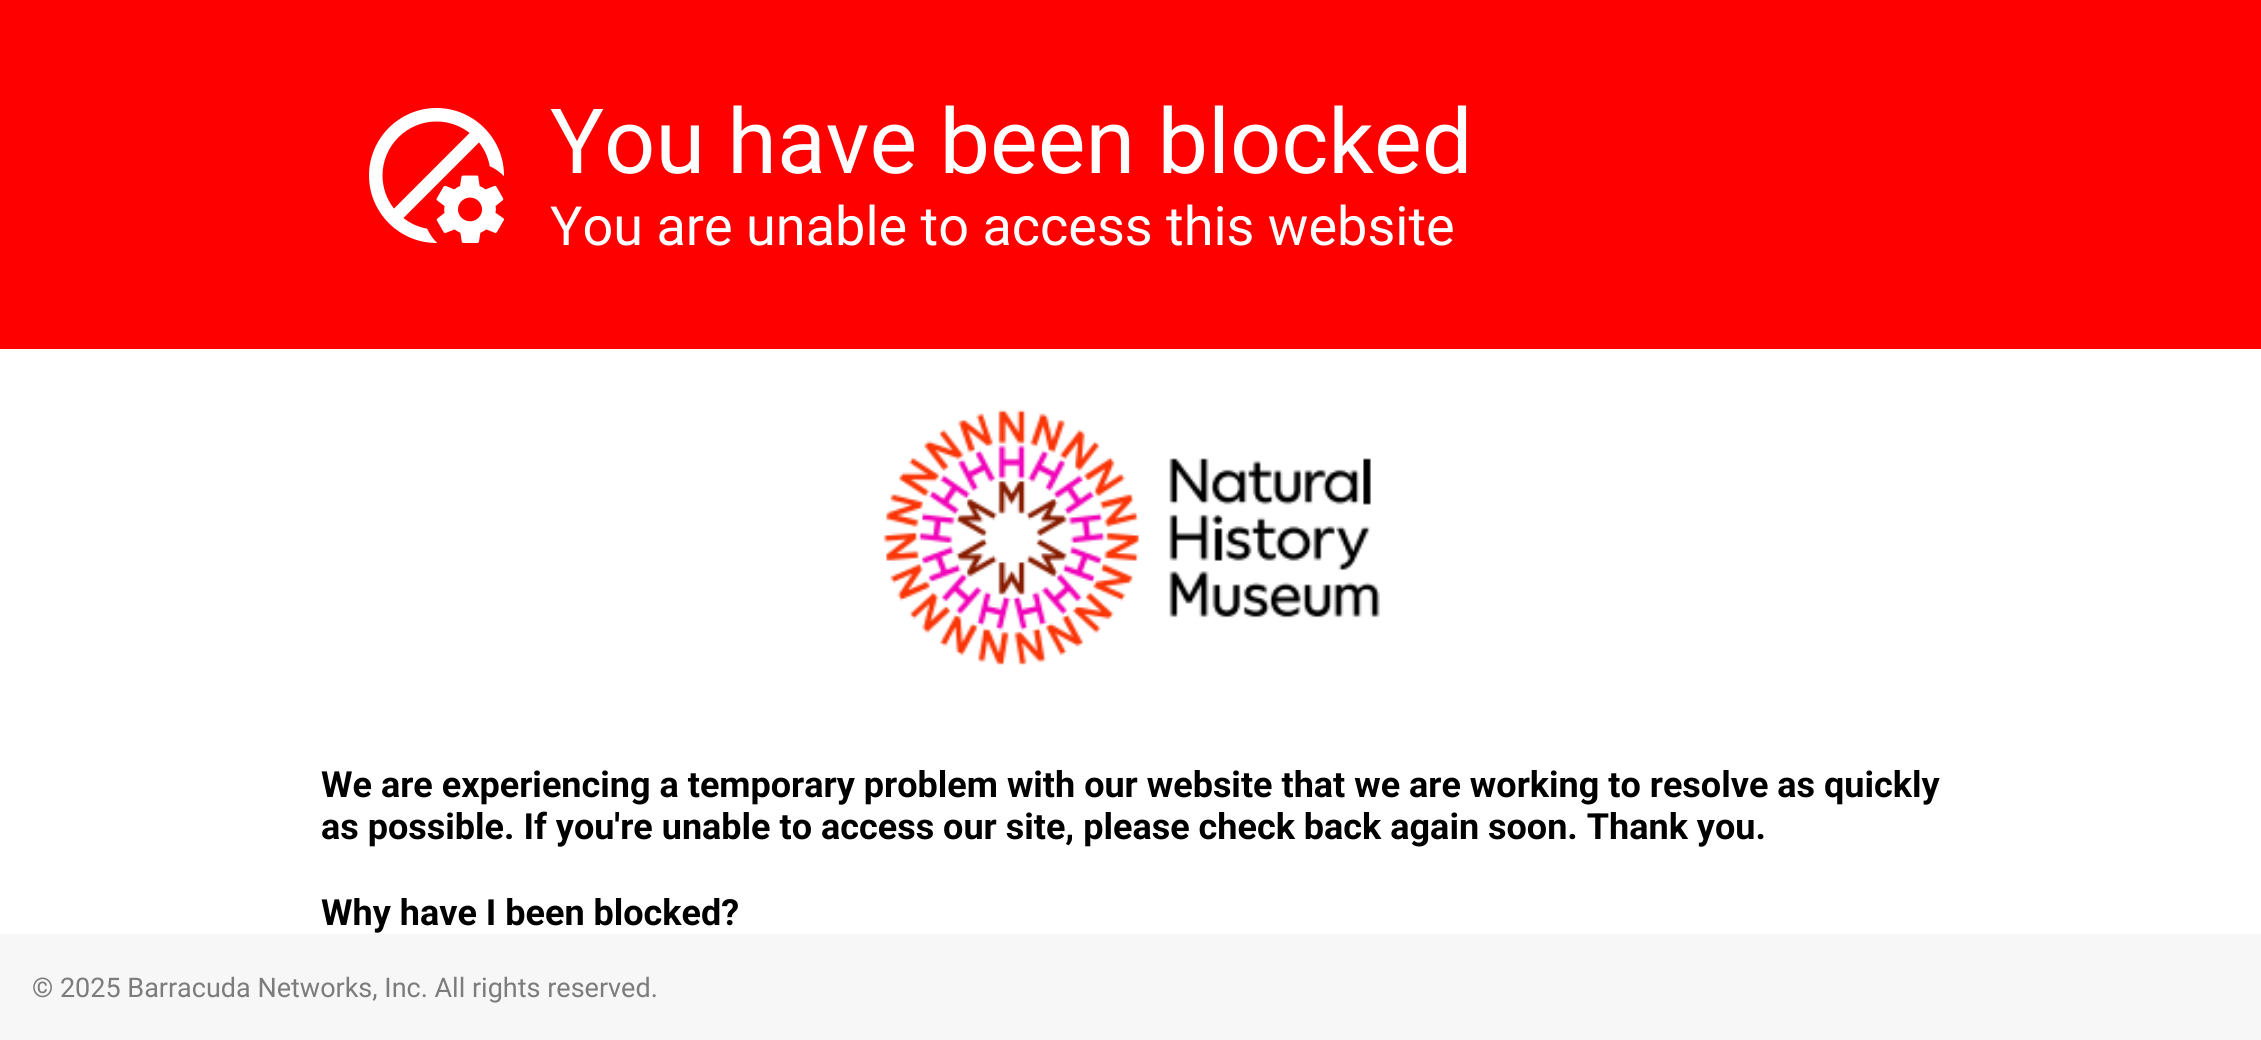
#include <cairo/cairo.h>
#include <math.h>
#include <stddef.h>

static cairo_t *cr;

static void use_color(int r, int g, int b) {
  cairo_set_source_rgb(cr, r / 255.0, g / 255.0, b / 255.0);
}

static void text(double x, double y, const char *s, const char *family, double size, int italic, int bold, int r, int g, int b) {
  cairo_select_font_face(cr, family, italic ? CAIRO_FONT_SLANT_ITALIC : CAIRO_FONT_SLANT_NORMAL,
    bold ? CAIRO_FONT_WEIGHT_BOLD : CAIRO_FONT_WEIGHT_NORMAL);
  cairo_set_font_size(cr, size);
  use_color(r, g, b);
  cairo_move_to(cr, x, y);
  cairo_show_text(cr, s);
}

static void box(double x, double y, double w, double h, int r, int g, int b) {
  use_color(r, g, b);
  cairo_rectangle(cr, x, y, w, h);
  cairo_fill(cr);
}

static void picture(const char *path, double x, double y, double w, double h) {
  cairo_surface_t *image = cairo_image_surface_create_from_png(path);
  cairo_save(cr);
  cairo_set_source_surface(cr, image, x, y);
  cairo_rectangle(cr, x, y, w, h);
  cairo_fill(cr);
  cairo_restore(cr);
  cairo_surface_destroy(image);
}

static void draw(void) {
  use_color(255, 255, 255);
  cairo_paint(cr);
  box(0, 0, 2261, 349, 255, 0, 0);
  picture("img_01.png", 369, 108, 135, 135);
  picture("img_02.png", 883, 409, 497, 256);
  box(0, 934, 2261, 106, 247, 247, 247);
  text(550, 173, "You have been blocked", "Roboto", 90, 0, 0, 255, 255, 255);
  text(550, 245, "You are unable to access this website", "Roboto", 54, 0, 0, 255, 255, 255);
  text(321, 797, "We are experiencing a temporary problem with our website that we are working to resolve as quickly", "Roboto", 36, 0, 1, 0, 0, 0);
  text(321, 839, "as possible. If you're unable to access our site, please check back again soon. Thank you.", "Roboto", 36, 0, 1, 0, 0, 0);
  text(321, 925, "Why have I been blocked?", "Roboto", 36, 0, 1, 0, 0, 0);
  text(32, 997, "© 2025 Barracuda Networks, Inc. All rights reserved.", "Roboto", 27, 0, 0, 124, 124, 124);
}

int main(void) {
  cairo_surface_t *surface = cairo_image_surface_create(CAIRO_FORMAT_RGB24, 2261, 1040);
  cr = cairo_create(surface);
  cairo_font_options_t *options = cairo_font_options_create();
  cairo_font_options_set_hint_metrics(options, CAIRO_HINT_METRICS_OFF);
  cairo_font_options_set_hint_style(options, CAIRO_HINT_STYLE_NONE);
  cairo_set_font_options(cr, options);
  cairo_set_miter_limit(cr, 4);
  draw();
  cairo_surface_write_to_png(surface, "out.png");
  cairo_font_options_destroy(options);
  cairo_destroy(cr);
  cairo_surface_destroy(surface);
  return 0;
}
